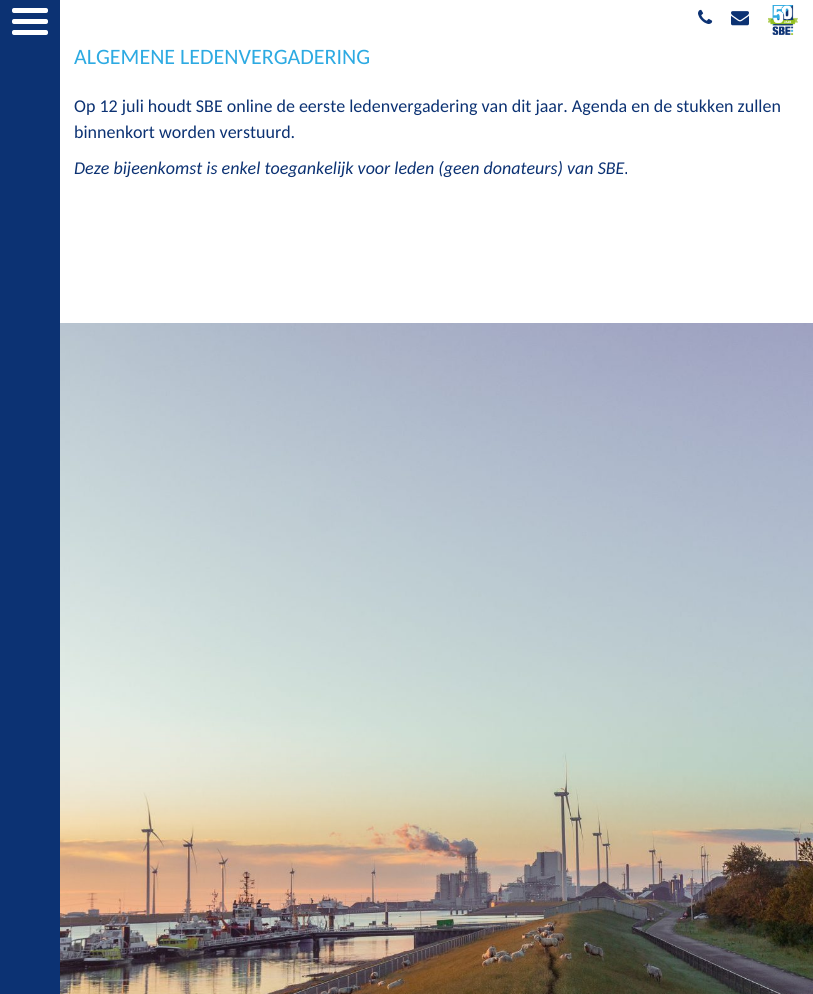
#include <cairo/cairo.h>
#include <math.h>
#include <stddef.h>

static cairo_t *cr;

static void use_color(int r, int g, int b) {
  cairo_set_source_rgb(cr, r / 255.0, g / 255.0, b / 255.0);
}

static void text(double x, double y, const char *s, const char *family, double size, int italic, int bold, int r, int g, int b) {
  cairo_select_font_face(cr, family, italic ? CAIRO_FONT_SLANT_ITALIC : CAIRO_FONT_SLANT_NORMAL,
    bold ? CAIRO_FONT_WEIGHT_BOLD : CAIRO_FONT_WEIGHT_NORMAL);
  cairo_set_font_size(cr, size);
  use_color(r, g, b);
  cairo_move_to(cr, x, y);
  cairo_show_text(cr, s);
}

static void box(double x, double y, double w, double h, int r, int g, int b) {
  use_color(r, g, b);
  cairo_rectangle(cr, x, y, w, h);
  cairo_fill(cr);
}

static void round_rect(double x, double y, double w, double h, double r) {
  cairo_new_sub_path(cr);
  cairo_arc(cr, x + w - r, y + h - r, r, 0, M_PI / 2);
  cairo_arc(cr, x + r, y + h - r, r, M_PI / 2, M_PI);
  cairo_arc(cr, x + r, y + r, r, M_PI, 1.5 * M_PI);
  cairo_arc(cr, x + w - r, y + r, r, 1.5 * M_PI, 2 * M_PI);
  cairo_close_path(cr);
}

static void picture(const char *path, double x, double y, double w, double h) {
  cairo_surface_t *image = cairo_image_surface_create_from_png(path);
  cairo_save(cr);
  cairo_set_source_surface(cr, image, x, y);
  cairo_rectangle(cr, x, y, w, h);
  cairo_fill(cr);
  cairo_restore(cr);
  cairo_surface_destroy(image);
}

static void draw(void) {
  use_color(255, 255, 255);
  cairo_paint(cr);
  box(0, 0, 60, 994, 12, 50, 115);
  use_color(255, 255, 255);
  round_rect(12, 8, 36, 5, 2);
  cairo_fill(cr);
  round_rect(12, 19, 36, 5, 2);
  cairo_fill(cr);
  round_rect(12, 30, 36, 5, 2);
  cairo_fill(cr);
  picture("img_01.png", 698, 9, 15, 15);
  picture("img_02.png", 731, 11, 18, 15);
  picture("img_03.png", 768, 5, 30, 30);
  picture("img_04.png", 60, 323, 753, 671);
  text(74, 64, "ALGEMENE LEDENVERGADERING", "Carlito", 22, 0, 0, 45, 170, 226);
  text(74, 112, "Op 12 juli houdt SBE online de eerste ledenvergadering van dit jaar. Agenda en de stukken zullen", "Carlito", 18, 0, 0, 12, 50, 115);
  text(74, 138, "binnenkort worden verstuurd.", "Carlito", 18, 0, 0, 12, 50, 115);
  text(74, 174, "Deze bijeenkomst is enkel toegankelijk voor leden (geen donateurs) van SBE.", "Carlito", 18, 1, 0, 12, 50, 115);
}

int main(void) {
  cairo_surface_t *surface = cairo_image_surface_create(CAIRO_FORMAT_RGB24, 813, 994);
  cr = cairo_create(surface);
  cairo_font_options_t *options = cairo_font_options_create();
  cairo_font_options_set_hint_metrics(options, CAIRO_HINT_METRICS_OFF);
  cairo_font_options_set_hint_style(options, CAIRO_HINT_STYLE_NONE);
  cairo_set_font_options(cr, options);
  cairo_set_miter_limit(cr, 4);
  draw();
  cairo_surface_write_to_png(surface, "out.png");
  cairo_font_options_destroy(options);
  cairo_destroy(cr);
  cairo_surface_destroy(surface);
  return 0;
}
